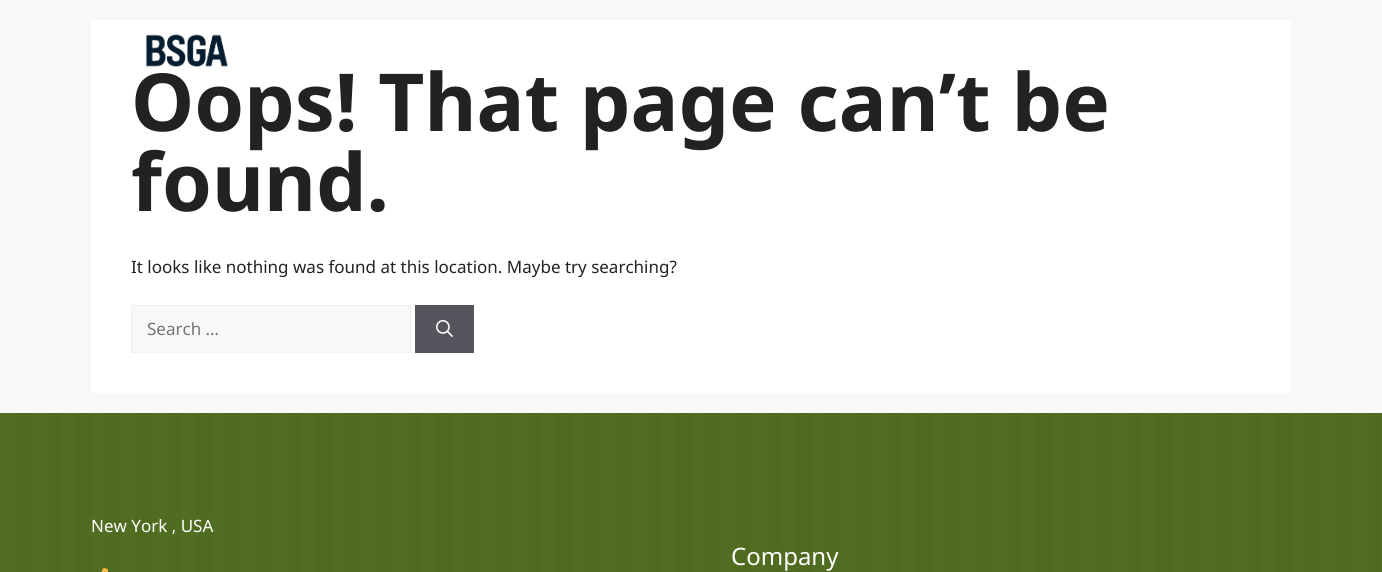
#include <cairo/cairo.h>
#include <math.h>
#include <stddef.h>

static cairo_t *cr;

static void use_color(int r, int g, int b) {
  cairo_set_source_rgb(cr, r / 255.0, g / 255.0, b / 255.0);
}

static void text(double x, double y, const char *s, const char *family, double size, int italic, int bold, int r, int g, int b) {
  cairo_select_font_face(cr, family, italic ? CAIRO_FONT_SLANT_ITALIC : CAIRO_FONT_SLANT_NORMAL,
    bold ? CAIRO_FONT_WEIGHT_BOLD : CAIRO_FONT_WEIGHT_NORMAL);
  cairo_set_font_size(cr, size);
  use_color(r, g, b);
  cairo_move_to(cr, x, y);
  cairo_show_text(cr, s);
}

static void box(double x, double y, double w, double h, int r, int g, int b) {
  use_color(r, g, b);
  cairo_rectangle(cr, x, y, w, h);
  cairo_fill(cr);
}

static void picture(const char *path, double x, double y, double w, double h) {
  cairo_surface_t *image = cairo_image_surface_create_from_png(path);
  cairo_save(cr);
  cairo_set_source_surface(cr, image, x, y);
  cairo_rectangle(cr, x, y, w, h);
  cairo_fill(cr);
  cairo_restore(cr);
  cairo_surface_destroy(image);
}

static void draw(void) {
  use_color(247, 248, 249);
  cairo_paint(cr);
  box(91, 20, 1200, 373, 255, 255, 255);
  picture("img_01.png", 145, 34, 83, 33);
  use_color(247, 248, 249);
  cairo_rectangle(cr, 131.5, 305.5, 279, 47);
  cairo_fill_preserve(cr);
  use_color(240, 240, 240);
  cairo_set_line_width(cr, 1);
  cairo_stroke(cr);
  box(415, 305, 59, 48, 85, 85, 94);
  picture("img_02.png", 436, 320, 17, 17);
  box(0, 413, 1382, 159, 57, 89, 3);
  picture("img_04.png", 101, 568, 7, 4);
  text(131, 131, "Oops! That page can’t be", "Noto Sans", 80, 0, 1, 34, 34, 34);
  text(131, 211, "found.", "Noto Sans", 80, 0, 1, 34, 34, 34);
  text(131, 273, "It looks like nothing was found at this location. Maybe try searching?", "Noto Sans", 17, 0, 0, 34, 34, 34);
  text(147, 335, "Search …", "Noto Sans", 17, 0, 0, 117, 117, 117);
  text(91, 532, "New York , USA", "Noto Sans", 17, 0, 0, 255, 255, 255);
  text(731, 565, "Company", "Noto Sans", 24, 0, 0, 255, 255, 255);
  picture("img_03.png", 0, 413, 1382, 159);
}

int main(void) {
  cairo_surface_t *surface = cairo_image_surface_create(CAIRO_FORMAT_RGB24, 1382, 572);
  cr = cairo_create(surface);
  cairo_font_options_t *options = cairo_font_options_create();
  cairo_font_options_set_hint_metrics(options, CAIRO_HINT_METRICS_OFF);
  cairo_font_options_set_hint_style(options, CAIRO_HINT_STYLE_NONE);
  cairo_set_font_options(cr, options);
  cairo_set_miter_limit(cr, 4);
  draw();
  cairo_surface_write_to_png(surface, "out.png");
  cairo_font_options_destroy(options);
  cairo_destroy(cr);
  cairo_surface_destroy(surface);
  return 0;
}
